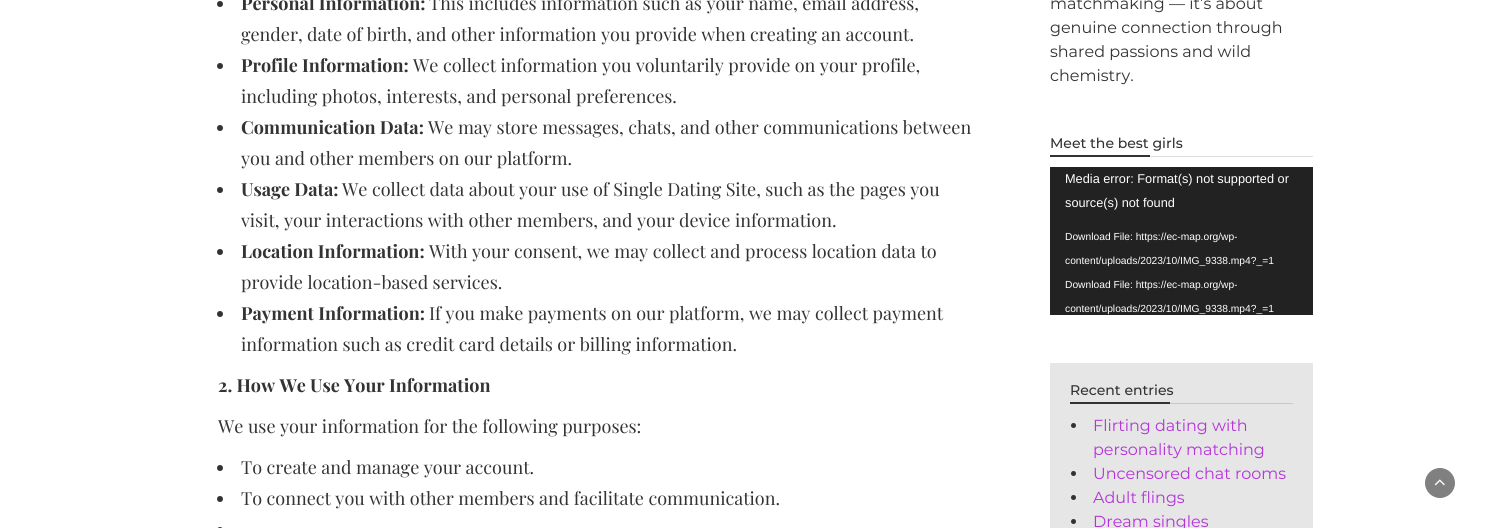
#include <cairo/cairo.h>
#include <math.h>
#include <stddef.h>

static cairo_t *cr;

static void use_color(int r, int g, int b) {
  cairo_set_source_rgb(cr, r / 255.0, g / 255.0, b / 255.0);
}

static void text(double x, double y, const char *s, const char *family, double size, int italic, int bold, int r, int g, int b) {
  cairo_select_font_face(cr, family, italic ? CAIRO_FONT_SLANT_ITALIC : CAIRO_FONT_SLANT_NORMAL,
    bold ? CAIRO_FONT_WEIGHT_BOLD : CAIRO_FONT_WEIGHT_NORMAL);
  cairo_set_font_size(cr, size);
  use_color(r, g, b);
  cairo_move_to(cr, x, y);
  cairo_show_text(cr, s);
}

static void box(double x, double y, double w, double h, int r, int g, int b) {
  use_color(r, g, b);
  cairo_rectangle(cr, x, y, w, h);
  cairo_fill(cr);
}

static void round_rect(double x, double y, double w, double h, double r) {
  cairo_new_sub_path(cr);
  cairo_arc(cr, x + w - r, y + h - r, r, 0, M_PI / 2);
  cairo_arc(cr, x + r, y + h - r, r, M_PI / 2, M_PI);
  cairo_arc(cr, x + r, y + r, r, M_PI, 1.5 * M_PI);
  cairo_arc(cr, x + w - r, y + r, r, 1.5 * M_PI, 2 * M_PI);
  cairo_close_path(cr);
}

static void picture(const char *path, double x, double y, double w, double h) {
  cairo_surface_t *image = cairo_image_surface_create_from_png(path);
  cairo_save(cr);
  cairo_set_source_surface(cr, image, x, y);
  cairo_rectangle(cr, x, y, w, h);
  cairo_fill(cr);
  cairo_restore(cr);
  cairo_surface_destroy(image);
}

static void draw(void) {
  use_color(255, 255, 255);
  cairo_paint(cr);
  use_color(51, 51, 51);
  cairo_arc(cr, 220, 4, 3, 0, 2 * M_PI);
  cairo_fill(cr);
  cairo_arc(cr, 220, 66, 3, 0, 2 * M_PI);
  cairo_fill(cr);
  cairo_arc(cr, 220, 128, 3, 0, 2 * M_PI);
  cairo_fill(cr);
  cairo_arc(cr, 220, 190, 3, 0, 2 * M_PI);
  cairo_fill(cr);
  cairo_arc(cr, 220, 252, 3, 0, 2 * M_PI);
  cairo_fill(cr);
  cairo_arc(cr, 220, 314, 3, 0, 2 * M_PI);
  cairo_fill(cr);
  cairo_arc(cr, 220, 468, 3, 0, 2 * M_PI);
  cairo_fill(cr);
  cairo_arc(cr, 220, 499, 3, 0, 2 * M_PI);
  cairo_fill(cr);
  round_rect(217, 527, 6, 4, 3);
  cairo_fill(cr);
  box(1150, 156, 163, 1, 222, 222, 222);
  box(1050, 155, 100, 2, 51, 51, 51);
  box(1050, 167, 263, 148, 34, 34, 34);
  box(1050, 363, 263, 165, 230, 230, 230);
  box(1170, 403, 123, 1, 200, 200, 200);
  box(1070, 402, 100, 2, 51, 51, 51);
  cairo_arc(cr, 1073.5, 425.5, 2.5, 0, 2 * M_PI);
  cairo_fill(cr);
  cairo_arc(cr, 1073.5, 473.5, 2.5, 0, 2 * M_PI);
  cairo_fill(cr);
  cairo_arc(cr, 1073.5, 497.5, 2.5, 0, 2 * M_PI);
  cairo_fill(cr);
  cairo_arc(cr, 1073.5, 521.5, 2.5, 0, 2 * M_PI);
  cairo_fill(cr);
  use_color(128, 128, 128);
  cairo_arc(cr, 1440, 483, 15, 0, 2 * M_PI);
  cairo_fill(cr);
  picture("img_01.png", 1434, 479, 11, 7);
  text(241, 10, "Personal Information:", "Playfair Display", 18, 0, 1, 51, 51, 51);
  text(429, 10, "This includes information such as your name, email address,", "Playfair Display", 18, 0, 0, 51, 51, 51);
  text(241, 41, "gender, date of birth, and other information you provide when creating an account.", "Playfair Display", 18, 0, 0, 51, 51, 51);
  text(241, 72, "Profile Information:", "Playfair Display", 18, 0, 1, 51, 51, 51);
  text(413, 72, "We collect information you voluntarily provide on your profile,", "Playfair Display", 18, 0, 0, 51, 51, 51);
  text(241, 103, "including photos, interests, and personal preferences.", "Playfair Display", 18, 0, 0, 51, 51, 51);
  text(241, 134, "Communication Data:", "Playfair Display", 18, 0, 1, 51, 51, 51);
  text(428, 134, "We may store messages, chats, and other communications between", "Playfair Display", 18, 0, 0, 51, 51, 51);
  text(241, 165, "you and other members on our platform.", "Playfair Display", 18, 0, 0, 51, 51, 51);
  text(241, 196, "Usage Data:", "Playfair Display", 18, 0, 1, 51, 51, 51);
  text(342, 196, "We collect data about your use of Single Dating Site, such as the pages you", "Playfair Display", 18, 0, 0, 51, 51, 51);
  text(241, 227, "visit, your interactions with other members, and your device information.", "Playfair Display", 18, 0, 0, 51, 51, 51);
  text(241, 258, "Location Information:", "Playfair Display", 18, 0, 1, 51, 51, 51);
  text(429, 258, "With your consent, we may collect and process location data to", "Playfair Display", 18, 0, 0, 51, 51, 51);
  text(241, 289, "provide location-based services.", "Playfair Display", 18, 0, 0, 51, 51, 51);
  text(241, 320, "Payment Information:", "Playfair Display", 18, 0, 1, 51, 51, 51);
  text(429, 320, "If you make payments on our platform, we may collect payment", "Playfair Display", 18, 0, 0, 51, 51, 51);
  text(241, 351, "information such as credit card details or billing information.", "Playfair Display", 18, 0, 0, 51, 51, 51);
  text(218, 392, "2. How We Use Your Information", "Playfair Display", 18, 0, 1, 51, 51, 51);
  text(218, 433, "We use your information for the following purposes:", "Playfair Display", 18, 0, 0, 51, 51, 51);
  text(241, 474, "To create and manage your account.", "Playfair Display", 18, 0, 0, 51, 51, 51);
  text(241, 505, "To connect you with other members and facilitate communication.", "Playfair Display", 18, 0, 0, 51, 51, 51);
  text(1050, 9, "matchmaking — it’s about", "Montserrat", 16, 0, 0, 51, 51, 51);
  text(1050, 33, "genuine connection through", "Montserrat", 16, 0, 0, 51, 51, 51);
  text(1050, 57, "shared passions and wild", "Montserrat", 16, 0, 0, 51, 51, 51);
  text(1050, 81, "chemistry.", "Montserrat", 16, 0, 0, 51, 51, 51);
  text(1050, 148, "Meet the best girls", "Montserrat Medium", 14, 0, 0, 51, 51, 51);
  text(1065, 183, "Media error: Format(s) not supported or", "Liberation Sans", 12.75, 0, 0, 255, 255, 255);
  text(1065, 207, "source(s) not found", "Liberation Sans", 12.75, 0, 0, 255, 255, 255);
  text(1065, 240, "Download File: https://ec-map.org/wp-", "Liberation Sans", 10.25, 0, 0, 255, 255, 255);
  text(1065, 264, "content/uploads/2023/10/IMG_9338.mp4?_=1", "Liberation Sans", 10.25, 0, 0, 255, 255, 255);
  text(1065, 288, "Download File: https://ec-map.org/wp-", "Liberation Sans", 10.25, 0, 0, 255, 255, 255);
  text(1065, 312, "content/uploads/2023/10/IMG_9338.mp4?_=1", "Liberation Sans", 10.25, 0, 0, 255, 255, 255);
  text(1070, 395, "Recent entries", "Montserrat Medium", 14, 0, 0, 51, 51, 51);
  text(1093, 431, "Flirting dating with", "Montserrat", 16, 0, 0, 181, 51, 219);
  text(1093, 455, "personality matching", "Montserrat", 16, 0, 0, 181, 51, 219);
  text(1093, 479, "Uncensored chat rooms", "Montserrat", 16, 0, 0, 181, 51, 219);
  text(1093, 503, "Adult flings", "Montserrat", 16, 0, 0, 181, 51, 219);
  text(1093, 527, "Dream singles", "Montserrat", 16, 0, 0, 181, 51, 219);
}

int main(void) {
  cairo_surface_t *surface = cairo_image_surface_create(CAIRO_FORMAT_RGB24, 1485, 528);
  cr = cairo_create(surface);
  cairo_font_options_t *options = cairo_font_options_create();
  cairo_font_options_set_hint_metrics(options, CAIRO_HINT_METRICS_OFF);
  cairo_font_options_set_hint_style(options, CAIRO_HINT_STYLE_NONE);
  cairo_set_font_options(cr, options);
  cairo_set_miter_limit(cr, 4);
  draw();
  cairo_surface_write_to_png(surface, "out.png");
  cairo_font_options_destroy(options);
  cairo_destroy(cr);
  cairo_surface_destroy(surface);
  return 0;
}
